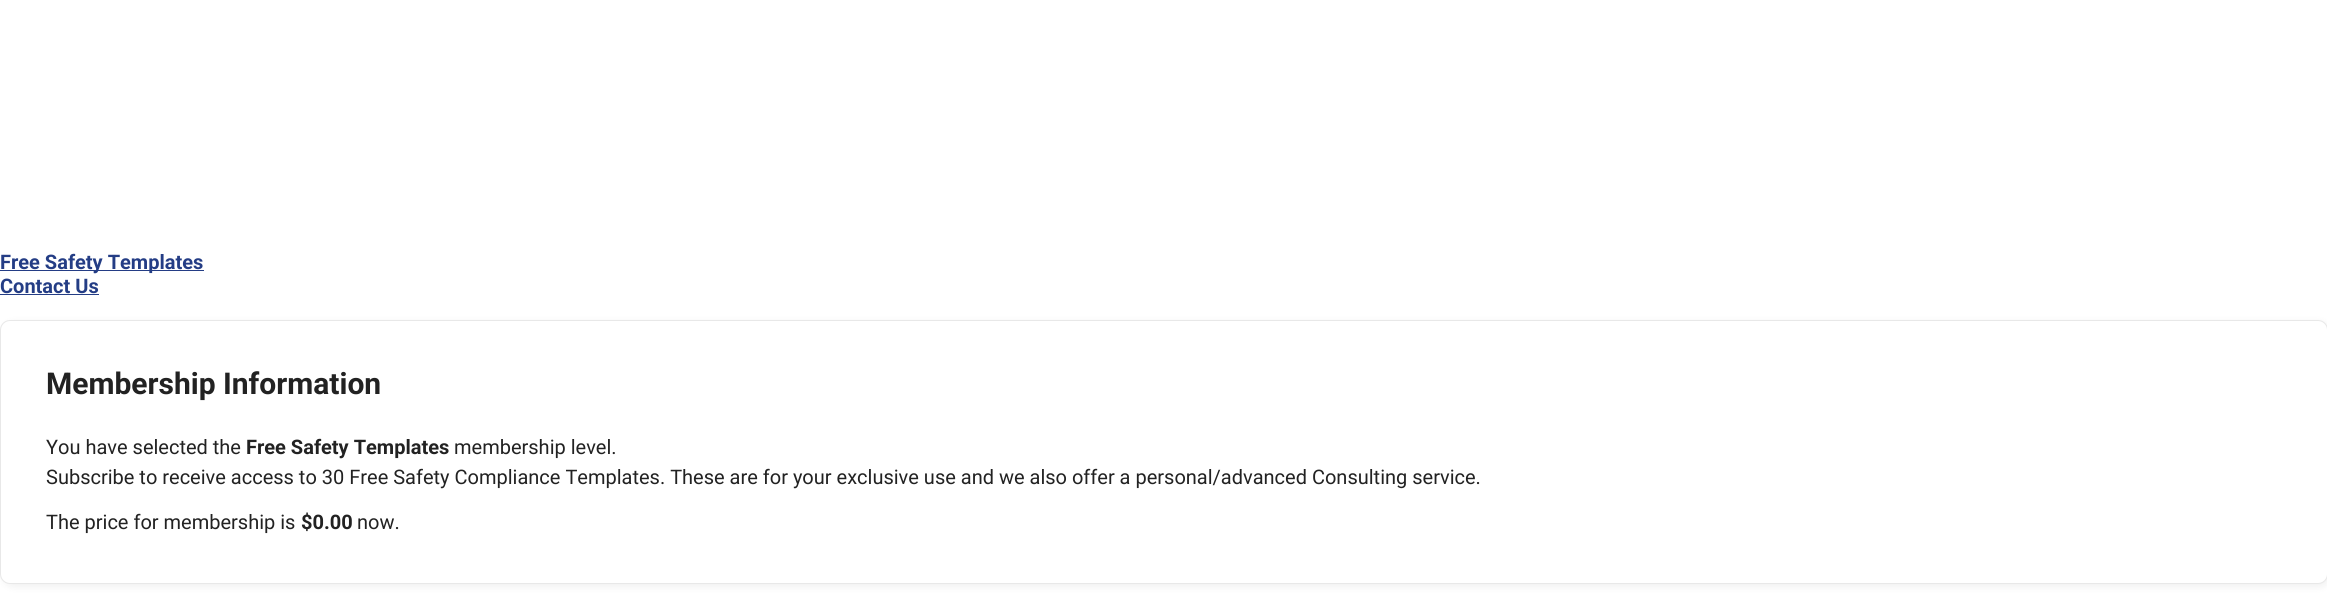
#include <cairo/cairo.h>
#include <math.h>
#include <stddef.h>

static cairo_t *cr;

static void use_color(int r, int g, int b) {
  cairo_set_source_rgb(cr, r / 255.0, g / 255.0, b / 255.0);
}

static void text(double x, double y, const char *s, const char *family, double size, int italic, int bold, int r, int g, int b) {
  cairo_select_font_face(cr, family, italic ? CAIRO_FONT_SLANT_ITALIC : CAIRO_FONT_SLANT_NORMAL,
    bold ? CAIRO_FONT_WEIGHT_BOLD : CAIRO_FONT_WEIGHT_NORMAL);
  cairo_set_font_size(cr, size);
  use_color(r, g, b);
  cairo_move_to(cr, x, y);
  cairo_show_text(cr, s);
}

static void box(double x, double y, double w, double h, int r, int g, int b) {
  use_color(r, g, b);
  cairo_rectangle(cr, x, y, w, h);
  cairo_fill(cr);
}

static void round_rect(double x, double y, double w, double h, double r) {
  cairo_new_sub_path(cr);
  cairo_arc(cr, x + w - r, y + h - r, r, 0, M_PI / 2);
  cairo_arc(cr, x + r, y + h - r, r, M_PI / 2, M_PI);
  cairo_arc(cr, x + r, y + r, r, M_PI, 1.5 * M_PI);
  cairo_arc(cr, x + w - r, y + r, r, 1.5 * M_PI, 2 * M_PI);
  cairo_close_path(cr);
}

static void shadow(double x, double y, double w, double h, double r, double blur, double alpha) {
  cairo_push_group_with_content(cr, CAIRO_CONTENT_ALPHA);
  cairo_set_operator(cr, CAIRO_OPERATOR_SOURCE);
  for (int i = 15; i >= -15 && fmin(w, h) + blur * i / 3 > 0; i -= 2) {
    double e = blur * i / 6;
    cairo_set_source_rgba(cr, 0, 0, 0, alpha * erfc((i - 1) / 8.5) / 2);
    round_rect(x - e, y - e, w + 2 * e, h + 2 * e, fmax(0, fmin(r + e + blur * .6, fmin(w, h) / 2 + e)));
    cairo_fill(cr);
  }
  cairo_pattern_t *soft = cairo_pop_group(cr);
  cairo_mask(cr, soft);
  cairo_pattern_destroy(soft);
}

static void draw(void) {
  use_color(255, 255, 255);
  cairo_paint(cr);
  box(0, 270, 204, 1, 36, 61, 133);
  box(0, 294, 99, 1, 36, 61, 133);
  use_color(0, 0, 0);
  shadow(3, 323, 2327, 263, 10, 4.5, 0.07);
  use_color(255, 255, 255);
  round_rect(0.5, 320.5, 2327, 263, 9.5);
  cairo_fill_preserve(cr);
  use_color(232, 232, 232);
  cairo_set_line_width(cr, 1);
  cairo_stroke(cr);
  text(0, 269, "Free Safety Templates", "Roboto", 20, 0, 1, 36, 61, 133);
  text(0, 293, "Contact Us", "Roboto", 20, 0, 1, 36, 61, 133);
  text(46, 394, "Membership Information", "Roboto", 30, 0, 1, 34, 34, 34);
  text(46, 454, "You have selected the", "Roboto", 20, 0, 0, 34, 34, 34);
  text(246, 454, "Free Safety Templates", "Roboto", 20, 0, 1, 34, 34, 34);
  text(454, 454, "membership level.", "Roboto", 20, 0, 0, 34, 34, 34);
  text(46, 484, "Subscribe to receive access to 30 Free Safety Compliance Templates. These are for your exclusive use and we also offer a personal/advanced Consulting service.", "Roboto", 20, 0, 0, 34, 34, 34);
  text(46, 529, "The price for membership is", "Roboto", 20, 0, 0, 34, 34, 34);
  text(301, 529, "$0.00", "Roboto", 20, 0, 1, 34, 34, 34);
  text(357, 529, "now.", "Roboto", 20, 0, 0, 34, 34, 34);
}

int main(void) {
  cairo_surface_t *surface = cairo_image_surface_create(CAIRO_FORMAT_RGB24, 2327, 598);
  cr = cairo_create(surface);
  cairo_font_options_t *options = cairo_font_options_create();
  cairo_font_options_set_hint_metrics(options, CAIRO_HINT_METRICS_OFF);
  cairo_font_options_set_hint_style(options, CAIRO_HINT_STYLE_NONE);
  cairo_set_font_options(cr, options);
  cairo_set_miter_limit(cr, 4);
  draw();
  cairo_surface_write_to_png(surface, "out.png");
  cairo_font_options_destroy(options);
  cairo_destroy(cr);
  cairo_surface_destroy(surface);
  return 0;
}
